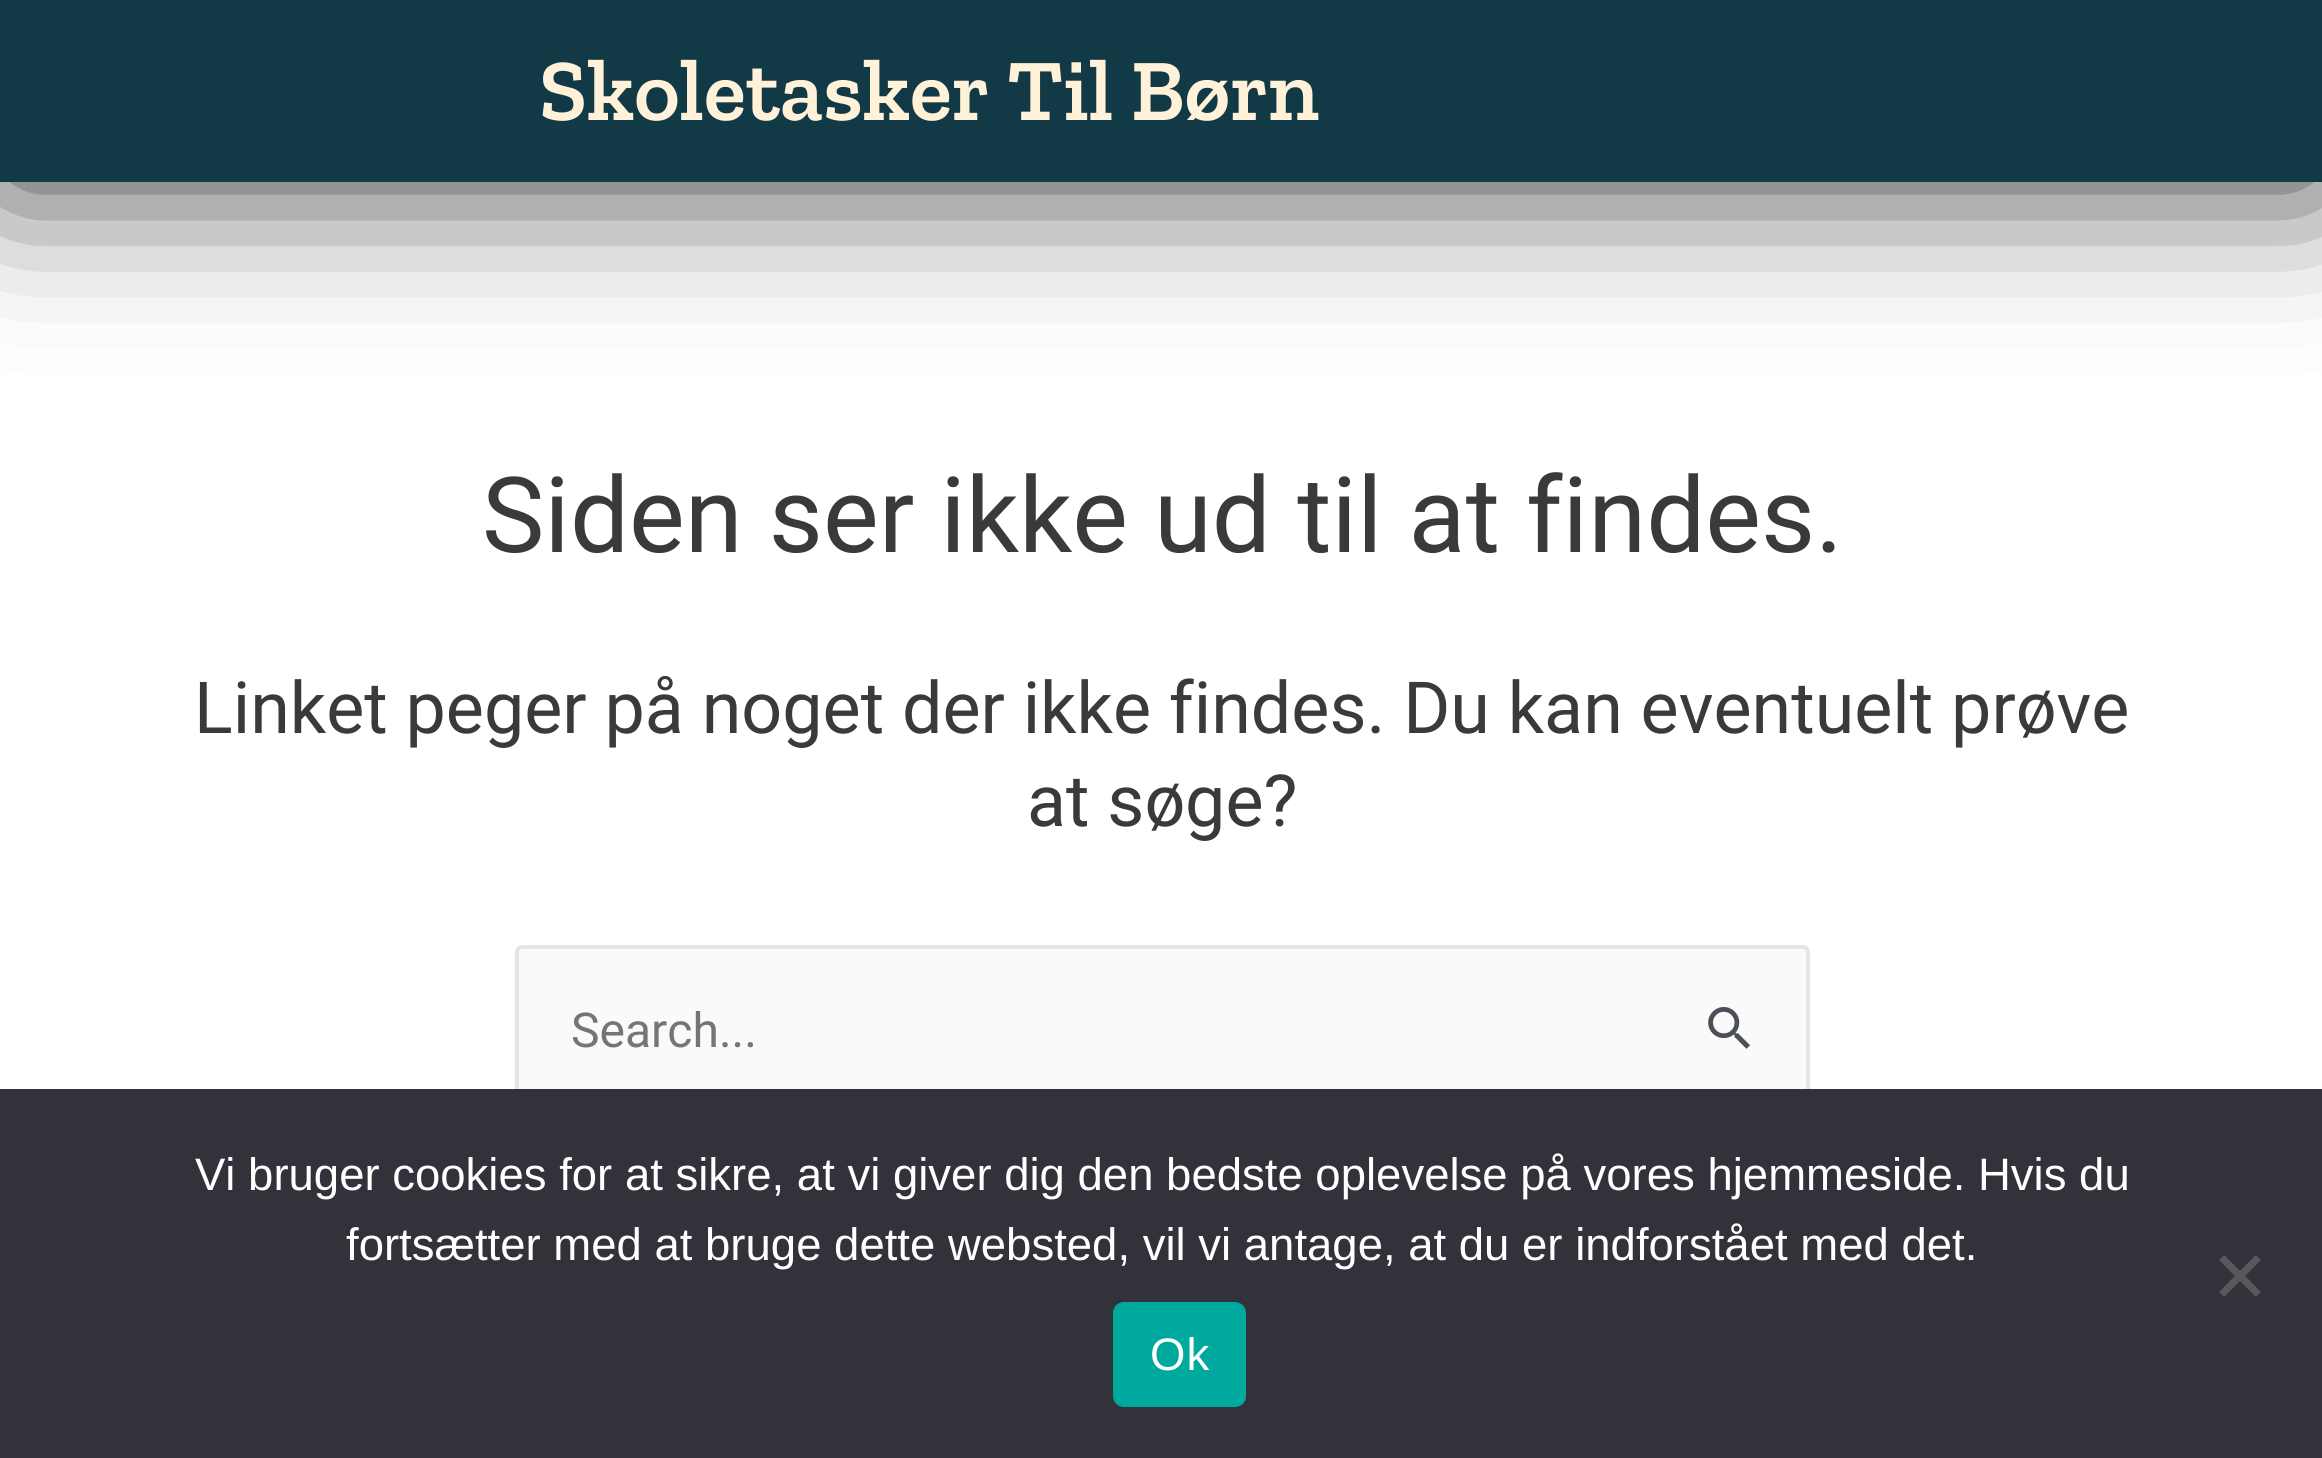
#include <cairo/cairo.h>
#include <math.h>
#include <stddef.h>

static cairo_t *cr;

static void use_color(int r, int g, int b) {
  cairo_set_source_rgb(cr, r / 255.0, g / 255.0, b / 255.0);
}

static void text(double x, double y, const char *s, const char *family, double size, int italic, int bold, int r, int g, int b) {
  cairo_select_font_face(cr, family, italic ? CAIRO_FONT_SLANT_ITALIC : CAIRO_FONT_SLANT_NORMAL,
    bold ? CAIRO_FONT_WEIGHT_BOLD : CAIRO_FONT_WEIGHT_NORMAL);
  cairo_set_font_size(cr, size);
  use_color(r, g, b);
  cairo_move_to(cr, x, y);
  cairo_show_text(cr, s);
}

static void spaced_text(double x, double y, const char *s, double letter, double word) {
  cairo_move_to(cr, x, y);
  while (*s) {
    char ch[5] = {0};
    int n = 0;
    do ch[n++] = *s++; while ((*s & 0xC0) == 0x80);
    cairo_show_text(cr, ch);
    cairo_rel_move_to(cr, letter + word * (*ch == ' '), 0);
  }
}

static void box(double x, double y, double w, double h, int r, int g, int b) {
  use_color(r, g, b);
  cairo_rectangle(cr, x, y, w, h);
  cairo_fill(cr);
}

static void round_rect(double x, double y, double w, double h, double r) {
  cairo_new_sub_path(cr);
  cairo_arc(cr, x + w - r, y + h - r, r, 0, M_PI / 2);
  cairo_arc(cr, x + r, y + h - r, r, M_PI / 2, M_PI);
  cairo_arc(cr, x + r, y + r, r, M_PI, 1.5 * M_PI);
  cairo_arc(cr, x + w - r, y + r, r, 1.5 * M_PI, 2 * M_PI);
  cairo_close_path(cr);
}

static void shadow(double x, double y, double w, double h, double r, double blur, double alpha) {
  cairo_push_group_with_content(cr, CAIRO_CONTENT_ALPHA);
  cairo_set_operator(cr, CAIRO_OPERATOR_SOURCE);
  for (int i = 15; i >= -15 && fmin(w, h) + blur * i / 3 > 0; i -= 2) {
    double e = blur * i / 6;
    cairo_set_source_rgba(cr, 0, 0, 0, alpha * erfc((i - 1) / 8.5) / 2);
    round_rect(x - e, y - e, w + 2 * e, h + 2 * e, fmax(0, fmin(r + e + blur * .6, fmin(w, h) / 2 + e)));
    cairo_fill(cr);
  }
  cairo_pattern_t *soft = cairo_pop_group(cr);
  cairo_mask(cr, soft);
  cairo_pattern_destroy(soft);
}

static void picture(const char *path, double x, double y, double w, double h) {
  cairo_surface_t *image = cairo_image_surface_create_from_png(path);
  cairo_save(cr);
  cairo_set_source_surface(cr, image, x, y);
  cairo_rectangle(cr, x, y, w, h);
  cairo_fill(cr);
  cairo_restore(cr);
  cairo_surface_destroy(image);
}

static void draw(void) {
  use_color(255, 255, 255);
  cairo_paint(cr);
  use_color(0, 0, 0);
  shadow(0, 0, 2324, 182, 0, 77, 0.84);
  box(0, 0, 2322, 182, 17, 57, 70);
  use_color(250, 250, 250);
  round_rect(517, 947, 1291, 168, 5);
  cairo_fill_preserve(cr);
  use_color(229, 229, 229);
  cairo_set_line_width(cr, 4);
  cairo_stroke(cr);
  picture("img_01.png", 1708, 1007, 42, 42);
  box(0, 1089, 2322, 369, 50, 50, 58);
  use_color(89, 89, 93);
  cairo_new_path(cr);
  cairo_move_to(cr, 2256, 1255);
  cairo_line_to(cr, 2261, 1260);
  cairo_line_to(cr, 2224, 1297);
  cairo_line_to(cr, 2219, 1292);
  cairo_close_path(cr);
  cairo_fill(cr);
  cairo_new_path(cr);
  cairo_move_to(cr, 2219, 1260);
  cairo_line_to(cr, 2224, 1255);
  cairo_line_to(cr, 2261, 1292);
  cairo_line_to(cr, 2256, 1297);
  cairo_close_path(cr);
  cairo_fill(cr);
  use_color(0, 169, 157);
  round_rect(1113, 1302, 133, 105, 11);
  cairo_fill(cr);
  text(539, 120, "Skoletasker Til Børn", "Zilla Slab SemiBold", 87.5, 0, 0, 255, 242, 216);
  text(482, 552, "Siden ser ikke ud til at findes.", "Roboto", 105, 0, 0, 58, 58, 58);
  text(194, 733, "Linket peger på noget der ikke findes. Du kan eventuelt prøve", "Roboto", 71.8, 0, 0, 58, 58, 58);
  text(1027, 826, "at søge?", "Roboto", 71.8, 0, 0, 58, 58, 58);
  text(571, 1047, "Search...", "Roboto", 48, 0, 0, 117, 117, 117);
  text(195, 1190, "Vi bruger cookies for at sikre, at vi giver dig den bedste oplevelse på vores hjemmeside. Hvis du", "Liberation Sans", 45.5, 0, 0, 255, 255, 255);
  text(346, 1260, "fortsætter med at bruge dette websted, vil vi antage, at du er indforstået med det.", "Liberation Sans", 45.5, 0, 0, 255, 255, 255);
  spaced_text(1150, 1370, "Ok", 1, 0);
}

int main(void) {
  cairo_surface_t *surface = cairo_image_surface_create(CAIRO_FORMAT_RGB24, 2322, 1458);
  cr = cairo_create(surface);
  cairo_font_options_t *options = cairo_font_options_create();
  cairo_font_options_set_hint_metrics(options, CAIRO_HINT_METRICS_OFF);
  cairo_font_options_set_hint_style(options, CAIRO_HINT_STYLE_NONE);
  cairo_set_font_options(cr, options);
  cairo_set_miter_limit(cr, 4);
  draw();
  cairo_surface_write_to_png(surface, "out.png");
  cairo_font_options_destroy(options);
  cairo_destroy(cr);
  cairo_surface_destroy(surface);
  return 0;
}
